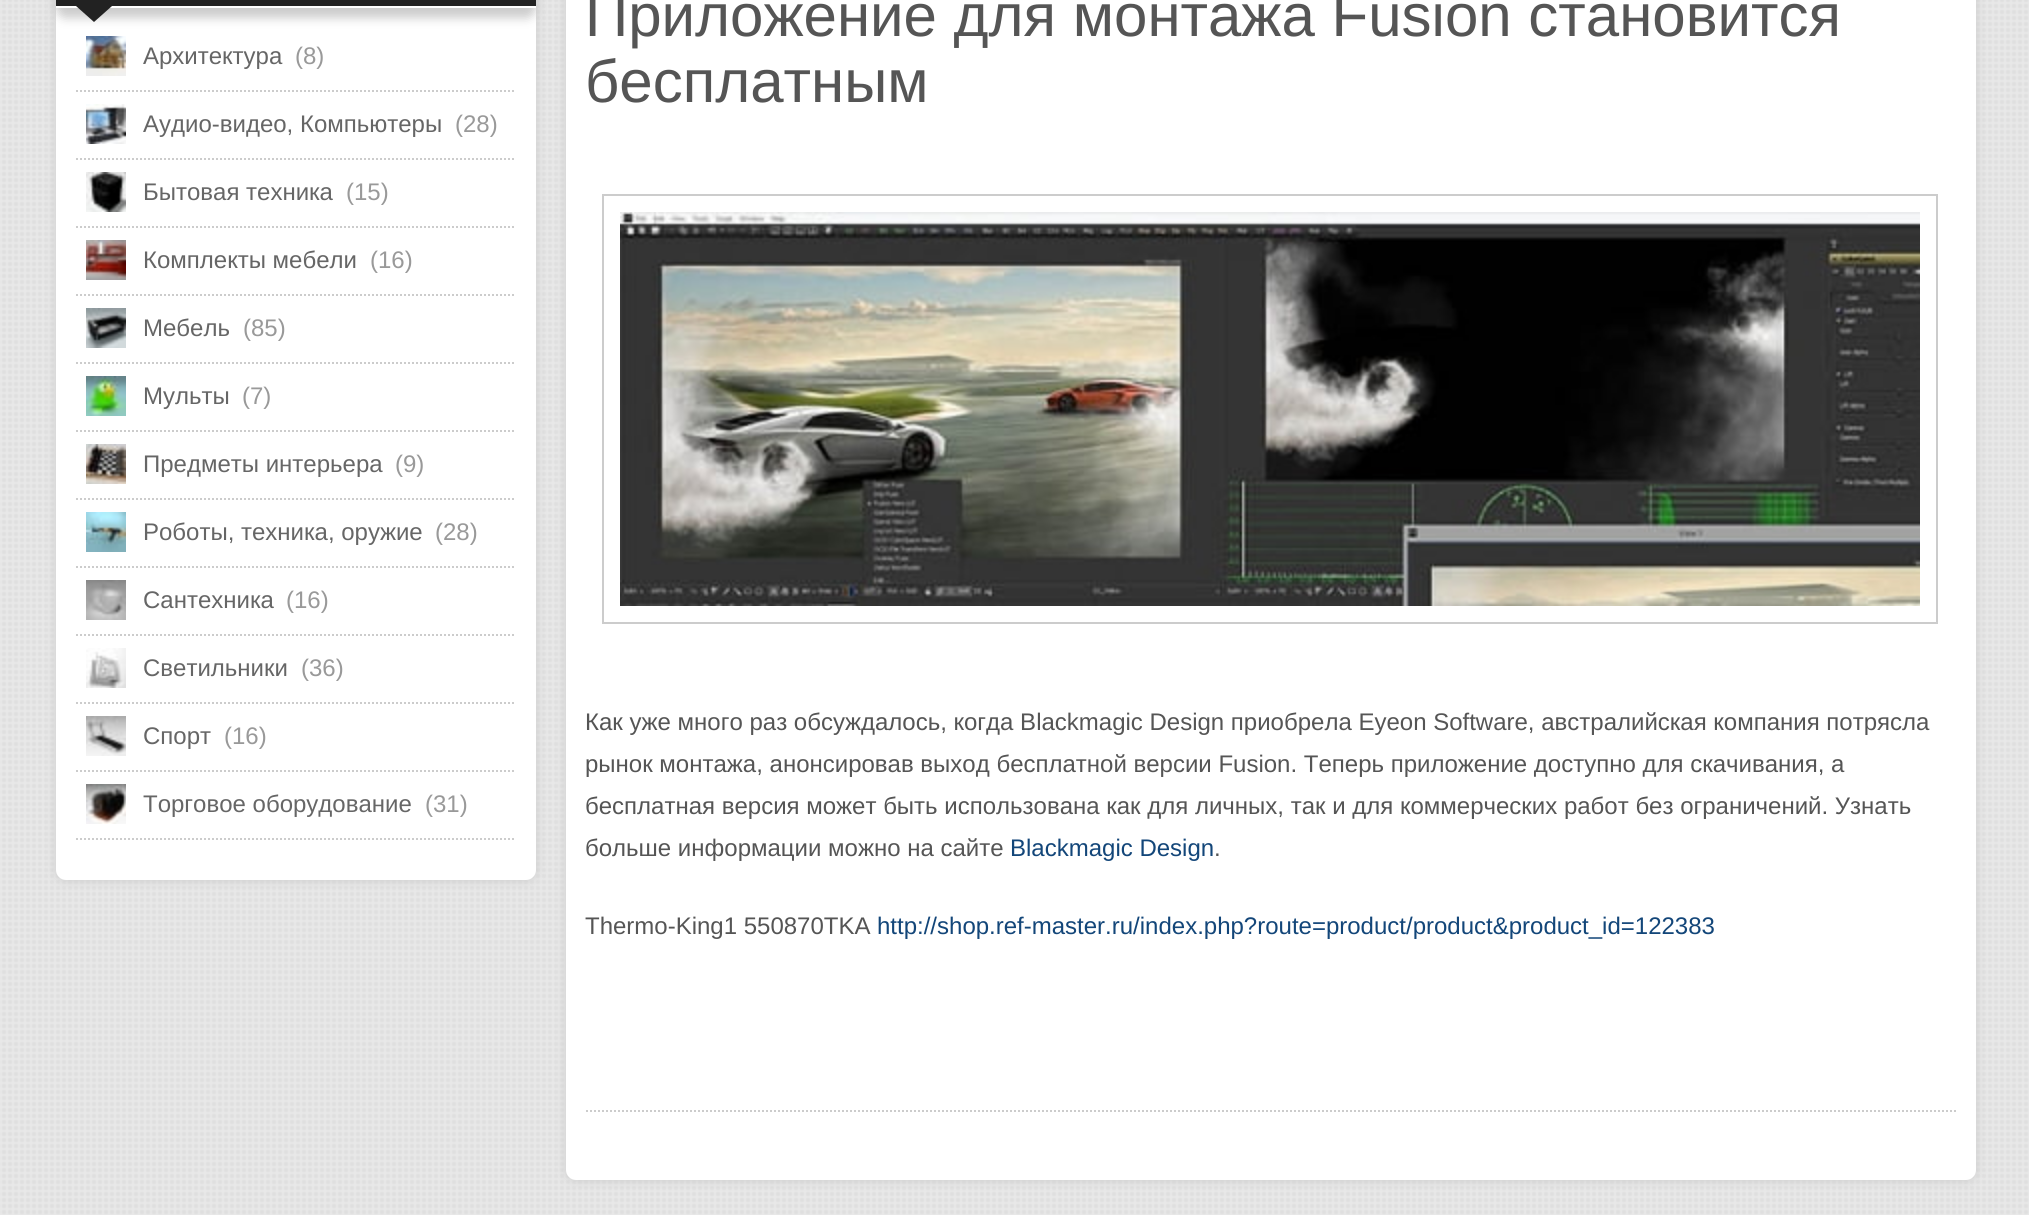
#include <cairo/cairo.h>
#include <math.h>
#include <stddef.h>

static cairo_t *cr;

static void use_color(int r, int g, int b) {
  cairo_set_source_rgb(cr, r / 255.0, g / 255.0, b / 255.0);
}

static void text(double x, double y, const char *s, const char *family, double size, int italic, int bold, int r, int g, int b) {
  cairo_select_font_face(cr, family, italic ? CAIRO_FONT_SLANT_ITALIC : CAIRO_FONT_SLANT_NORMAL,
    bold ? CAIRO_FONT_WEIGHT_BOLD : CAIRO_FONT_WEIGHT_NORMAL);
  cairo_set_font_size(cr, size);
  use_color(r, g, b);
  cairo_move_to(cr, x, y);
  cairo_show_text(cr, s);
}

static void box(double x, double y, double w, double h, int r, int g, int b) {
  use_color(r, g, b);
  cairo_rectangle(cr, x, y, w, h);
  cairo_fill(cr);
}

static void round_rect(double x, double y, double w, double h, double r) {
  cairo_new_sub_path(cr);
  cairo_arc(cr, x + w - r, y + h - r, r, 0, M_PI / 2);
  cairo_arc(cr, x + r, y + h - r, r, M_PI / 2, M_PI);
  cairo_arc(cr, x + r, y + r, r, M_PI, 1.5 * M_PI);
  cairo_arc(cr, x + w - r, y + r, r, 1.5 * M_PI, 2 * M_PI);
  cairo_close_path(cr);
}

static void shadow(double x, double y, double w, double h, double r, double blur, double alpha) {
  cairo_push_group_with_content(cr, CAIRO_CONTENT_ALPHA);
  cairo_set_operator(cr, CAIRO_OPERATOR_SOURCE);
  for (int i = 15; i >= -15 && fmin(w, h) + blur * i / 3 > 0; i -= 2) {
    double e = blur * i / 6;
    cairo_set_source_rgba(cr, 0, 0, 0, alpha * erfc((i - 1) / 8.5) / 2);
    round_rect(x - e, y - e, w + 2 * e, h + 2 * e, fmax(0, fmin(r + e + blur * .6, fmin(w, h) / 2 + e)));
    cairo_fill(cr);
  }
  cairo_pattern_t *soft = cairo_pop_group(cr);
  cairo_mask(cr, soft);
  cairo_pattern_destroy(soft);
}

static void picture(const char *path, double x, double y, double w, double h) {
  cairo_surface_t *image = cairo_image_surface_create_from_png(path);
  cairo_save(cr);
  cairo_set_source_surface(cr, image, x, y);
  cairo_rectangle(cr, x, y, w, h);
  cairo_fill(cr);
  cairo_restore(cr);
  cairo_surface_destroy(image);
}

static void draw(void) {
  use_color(255, 255, 255);
  cairo_paint(cr);
  picture("img_01.png", 0, 0, 2029, 1215);
  use_color(204, 204, 204);
  shadow(56, -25, 480, 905, 10, 5, 1);
  use_color(255, 255, 255);
  round_rect(56, -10, 480, 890, 10);
  cairo_fill(cr);
  use_color(204, 204, 204);
  shadow(56, -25, 480, 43, 10, 5, 1);
  box(56, 0, 480, 6, 34, 34, 34);
  box(56, 6, 480, 2, 255, 255, 255);
  use_color(34, 34, 34);
  cairo_new_path(cr);
  cairo_move_to(cr, 76, 6);
  cairo_line_to(cr, 112, 6);
  cairo_line_to(cr, 94, 22);
  cairo_close_path(cr);
  cairo_fill(cr);
  cairo_new_path(cr);
  cairo_move_to(cr, 76, 91);
  cairo_line_to(cr, 516, 91);
  use_color(204, 204, 204);
  cairo_set_dash(cr, (double[]){2, 2}, 2, 0);
  cairo_stroke(cr);
  picture("img_02.png", 86, 36, 40, 40);
  cairo_new_path(cr);
  cairo_move_to(cr, 76, 159);
  cairo_line_to(cr, 516, 159);
  cairo_stroke(cr);
  picture("img_03.png", 86, 104, 40, 40);
  cairo_new_path(cr);
  cairo_move_to(cr, 76, 227);
  cairo_line_to(cr, 516, 227);
  cairo_stroke(cr);
  picture("img_04.png", 86, 172, 40, 40);
  cairo_new_path(cr);
  cairo_move_to(cr, 76, 295);
  cairo_line_to(cr, 516, 295);
  cairo_stroke(cr);
  picture("img_05.png", 86, 240, 40, 40);
  cairo_new_path(cr);
  cairo_move_to(cr, 76, 363);
  cairo_line_to(cr, 516, 363);
  cairo_stroke(cr);
  picture("img_06.png", 86, 308, 40, 40);
  cairo_new_path(cr);
  cairo_move_to(cr, 76, 431);
  cairo_line_to(cr, 516, 431);
  cairo_stroke(cr);
  picture("img_07.png", 86, 376, 40, 40);
  cairo_new_path(cr);
  cairo_move_to(cr, 76, 499);
  cairo_line_to(cr, 516, 499);
  cairo_stroke(cr);
  picture("img_08.png", 86, 444, 40, 40);
  cairo_new_path(cr);
  cairo_move_to(cr, 76, 567);
  cairo_line_to(cr, 516, 567);
  cairo_stroke(cr);
  picture("img_09.png", 86, 512, 40, 40);
  cairo_new_path(cr);
  cairo_move_to(cr, 76, 635);
  cairo_line_to(cr, 516, 635);
  cairo_stroke(cr);
  picture("img_10.png", 86, 580, 40, 40);
  cairo_new_path(cr);
  cairo_move_to(cr, 76, 703);
  cairo_line_to(cr, 516, 703);
  cairo_stroke(cr);
  picture("img_11.png", 86, 648, 40, 40);
  cairo_new_path(cr);
  cairo_move_to(cr, 76, 771);
  cairo_line_to(cr, 516, 771);
  cairo_stroke(cr);
  picture("img_12.png", 86, 716, 40, 40);
  cairo_new_path(cr);
  cairo_move_to(cr, 76, 839);
  cairo_line_to(cr, 516, 839);
  cairo_stroke(cr);
  picture("img_13.png", 86, 784, 40, 40);
  use_color(204, 204, 204);
  shadow(566, -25, 1410, 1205, 10, 5, 1);
  use_color(255, 255, 255);
  round_rect(566, -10, 1410, 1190, 10);
  cairo_fill(cr);
  cairo_new_path(cr);
  cairo_move_to(cr, 586, 1111);
  cairo_line_to(cr, 1956, 1111);
  use_color(204, 204, 204);
  cairo_stroke(cr);
  cairo_rectangle(cr, 603, 195, 1334, 428);
  cairo_set_dash(cr, NULL, 0, 0);
  cairo_stroke(cr);
  picture("img_14.png", 620, 212, 1300, 394);
  text(143, 64, "Архитектура", "Liberation Sans", 24, 0, 0, 102, 102, 102);
  text(295, 64, "(8)", "Liberation Sans", 24, 0, 0, 153, 153, 153);
  text(143, 132, "Аудио-видео, Компьютеры", "Liberation Sans", 24, 0, 0, 102, 102, 102);
  text(455, 132, "(28)", "Liberation Sans", 24, 0, 0, 153, 153, 153);
  text(143, 200, "Бытовая техника", "Liberation Sans", 24, 0, 0, 102, 102, 102);
  text(346, 200, "(15)", "Liberation Sans", 24, 0, 0, 153, 153, 153);
  text(143, 268, "Комплекты мебели", "Liberation Sans", 24, 0, 0, 102, 102, 102);
  text(370, 268, "(16)", "Liberation Sans", 24, 0, 0, 153, 153, 153);
  text(143, 336, "Мебель", "Liberation Sans", 24, 0, 0, 102, 102, 102);
  text(243, 336, "(85)", "Liberation Sans", 24, 0, 0, 153, 153, 153);
  text(143, 404, "Мульты", "Liberation Sans", 24, 0, 0, 102, 102, 102);
  text(242, 404, "(7)", "Liberation Sans", 24, 0, 0, 153, 153, 153);
  text(143, 472, "Предметы интерьера", "Liberation Sans", 24, 0, 0, 102, 102, 102);
  text(395, 472, "(9)", "Liberation Sans", 24, 0, 0, 153, 153, 153);
  text(143, 540, "Роботы, техника, оружие", "Liberation Sans", 24, 0, 0, 102, 102, 102);
  text(435, 540, "(28)", "Liberation Sans", 24, 0, 0, 153, 153, 153);
  text(143, 608, "Сантехника", "Liberation Sans", 24, 0, 0, 102, 102, 102);
  text(286, 608, "(16)", "Liberation Sans", 24, 0, 0, 153, 153, 153);
  text(143, 676, "Светильники", "Liberation Sans", 24, 0, 0, 102, 102, 102);
  text(301, 676, "(36)", "Liberation Sans", 24, 0, 0, 153, 153, 153);
  text(143, 744, "Спорт", "Liberation Sans", 24, 0, 0, 102, 102, 102);
  text(224, 744, "(16)", "Liberation Sans", 24, 0, 0, 153, 153, 153);
  text(143, 812, "Торговое оборудование", "Liberation Sans", 24, 0, 0, 102, 102, 102);
  text(425, 812, "(31)", "Liberation Sans", 24, 0, 0, 153, 153, 153);
  text(585, 36, "Приложение для монтажа Fusion становится", "Liberation Sans", 60, 0, 0, 85, 85, 85);
  text(585, 102, "бесплатным", "Liberation Sans", 60, 0, 0, 85, 85, 85);
  text(585, 730, "Как уже много раз обсуждалось, когда Blackmagic Design приобрела Eyeon Software, австралийская компания потрясла", "Liberation Sans", 24, 0, 0, 85, 85, 85);
  text(585, 772, "рынок монтажа, анонсировав выход бесплатной версии Fusion. Теперь приложение доступно для скачивания, а", "Liberation Sans", 24, 0, 0, 85, 85, 85);
  text(585, 814, "бесплатная версия может быть использована как для личных, так и для коммерческих работ без ограничений. Узнать", "Liberation Sans", 24, 0, 0, 85, 85, 85);
  text(585, 856, "больше информации можно на сайте", "Liberation Sans", 24, 0, 0, 85, 85, 85);
  text(1010, 856, "Blackmagic Design", "Liberation Sans", 24, 0, 0, 19, 70, 121);
  text(1214, 856, ".", "Liberation Sans", 24, 0, 0, 85, 85, 85);
  text(585, 934, "Thermo-King1 550870TKA", "Liberation Sans", 24, 0, 0, 85, 85, 85);
  text(877, 934, "http://shop.ref-master.ru/index.php?route=product/product&product_id=122383", "Liberation Sans", 24, 0, 0, 19, 70, 121);
}

int main(void) {
  cairo_surface_t *surface = cairo_image_surface_create(CAIRO_FORMAT_RGB24, 2029, 1215);
  cr = cairo_create(surface);
  cairo_font_options_t *options = cairo_font_options_create();
  cairo_font_options_set_hint_metrics(options, CAIRO_HINT_METRICS_OFF);
  cairo_font_options_set_hint_style(options, CAIRO_HINT_STYLE_NONE);
  cairo_set_font_options(cr, options);
  cairo_set_miter_limit(cr, 4);
  draw();
  cairo_surface_write_to_png(surface, "out.png");
  cairo_font_options_destroy(options);
  cairo_destroy(cr);
  cairo_surface_destroy(surface);
  return 0;
}
